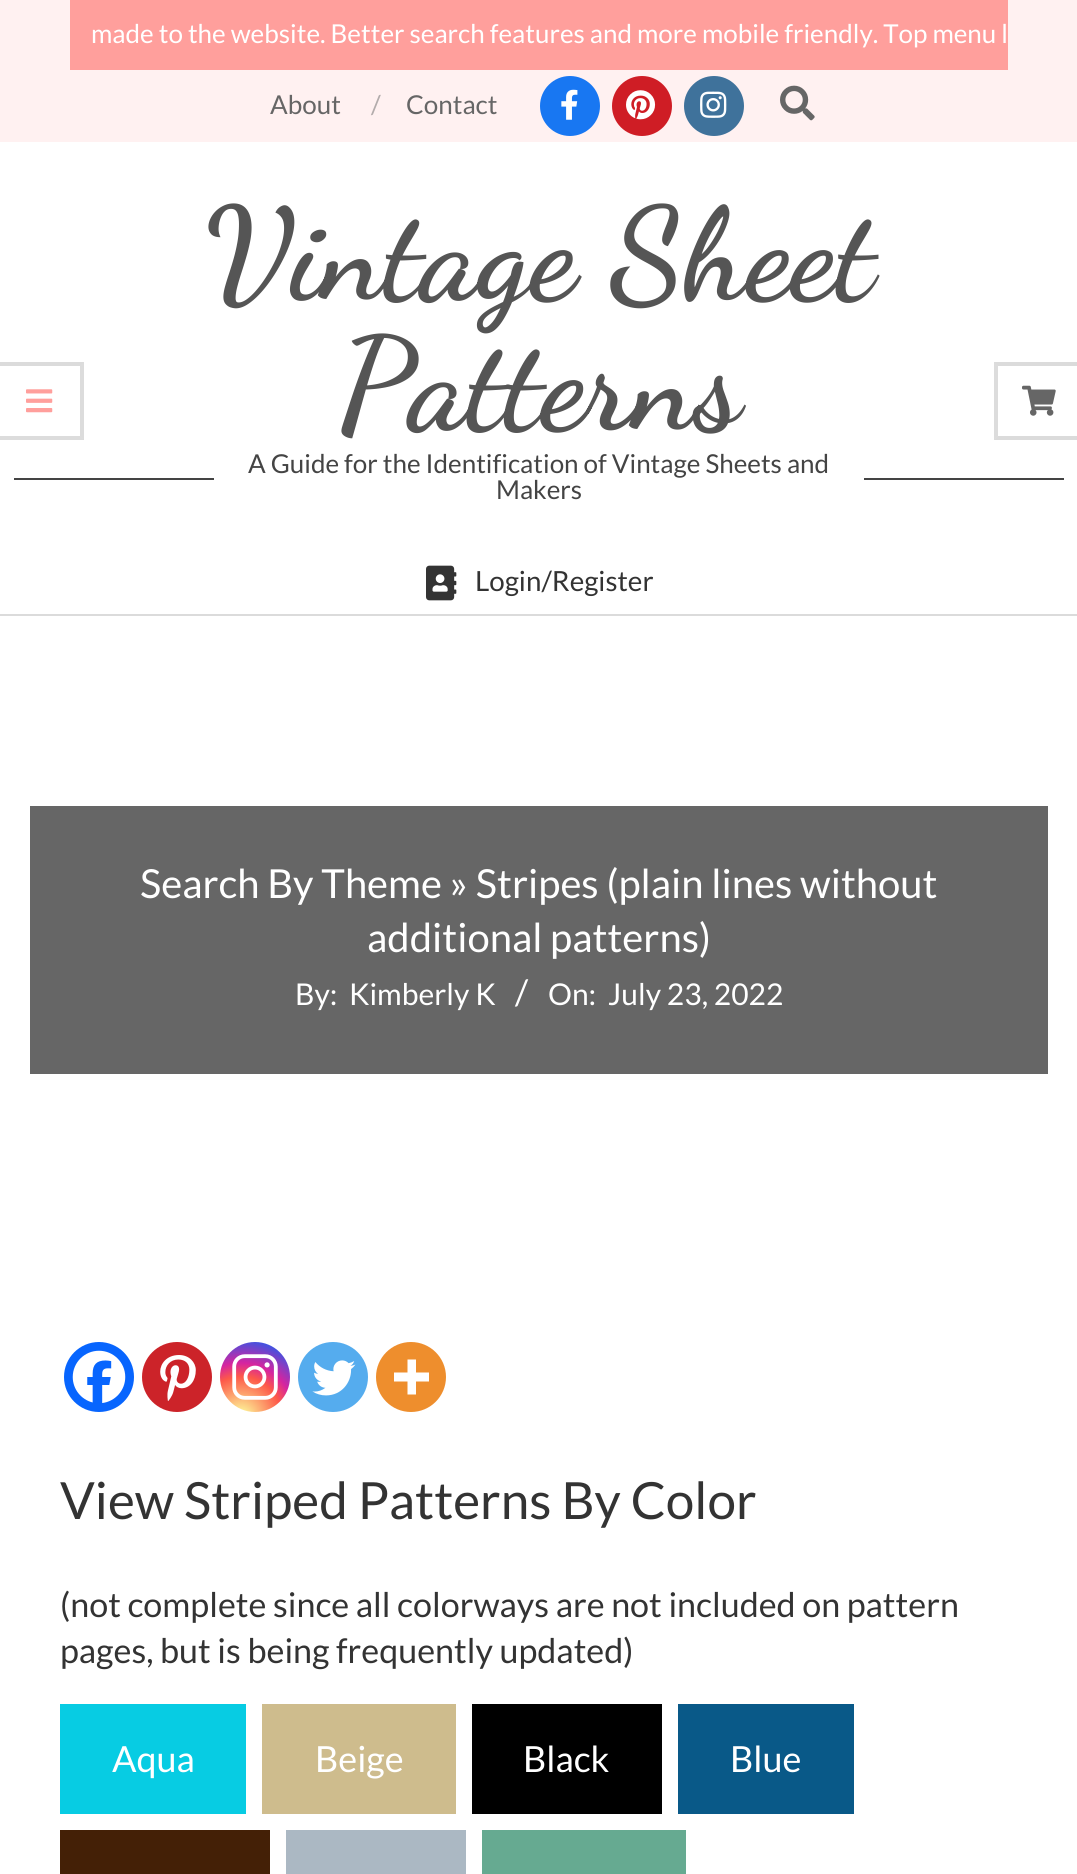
#include <cairo/cairo.h>
#include <math.h>
#include <stddef.h>

static cairo_t *cr;

static void use_color(int r, int g, int b) {
  cairo_set_source_rgb(cr, r / 255.0, g / 255.0, b / 255.0);
}

static void text(double x, double y, const char *s, const char *family, double size, int italic, int bold, int r, int g, int b) {
  cairo_select_font_face(cr, family, italic ? CAIRO_FONT_SLANT_ITALIC : CAIRO_FONT_SLANT_NORMAL,
    bold ? CAIRO_FONT_WEIGHT_BOLD : CAIRO_FONT_WEIGHT_NORMAL);
  cairo_set_font_size(cr, size);
  use_color(r, g, b);
  cairo_move_to(cr, x, y);
  cairo_show_text(cr, s);
}

static void box(double x, double y, double w, double h, int r, int g, int b) {
  use_color(r, g, b);
  cairo_rectangle(cr, x, y, w, h);
  cairo_fill(cr);
}

static void picture(const char *path, double x, double y, double w, double h) {
  cairo_surface_t *image = cairo_image_surface_create_from_png(path);
  cairo_save(cr);
  cairo_set_source_surface(cr, image, x, y);
  cairo_rectangle(cr, x, y, w, h);
  cairo_fill(cr);
  cairo_restore(cr);
  cairo_surface_destroy(image);
}

static void draw(void) {
  cairo_pattern_t *gradient;
  use_color(255, 255, 255);
  cairo_paint(cr);
  box(0, 0, 1077, 142, 255, 241, 241);
  box(70, 0, 938, 70, 255, 159, 156);
  use_color(24, 119, 242);
  cairo_arc(cr, 570, 106, 30, 0, 2 * M_PI);
  cairo_fill(cr);
  picture("img_01.png", 561, 89, 17, 31);
  use_color(207, 29, 37);
  cairo_arc(cr, 642, 106, 30, 0, 2 * M_PI);
  cairo_fill(cr);
  picture("img_02.png", 626, 90, 30, 30);
  use_color(63, 114, 155);
  cairo_arc(cr, 714, 106, 30, 0, 2 * M_PI);
  cairo_fill(cr);
  picture("img_03.png", 700, 91, 27, 27);
  picture("img_04.png", 780, 85, 35, 36);
  box(0, 614, 1077, 2, 219, 219, 219);
  box(14, 478, 200, 2, 68, 68, 68);
  box(864, 478, 200, 2, 68, 68, 68);
  use_color(219, 219, 219);
  cairo_new_path(cr);
  cairo_move_to(cr, 0, 362);
  cairo_line_to(cr, 84, 362);
  cairo_line_to(cr, 80, 366);
  cairo_line_to(cr, 0, 366);
  cairo_close_path(cr);
  cairo_fill(cr);
  cairo_set_source_rgba(cr, 0, 0, 0, 0.14);
  cairo_new_path(cr);
  cairo_move_to(cr, 84, 362);
  cairo_line_to(cr, 84, 440);
  cairo_line_to(cr, 80, 436);
  cairo_line_to(cr, 80, 366);
  cairo_close_path(cr);
  cairo_fill(cr);
  cairo_new_path(cr);
  cairo_move_to(cr, 84, 440);
  cairo_line_to(cr, 0, 440);
  cairo_line_to(cr, 0, 436);
  cairo_line_to(cr, 80, 436);
  cairo_close_path(cr);
  cairo_fill(cr);
  picture("img_05.png", 26, 389, 27, 24);
  picture("img_06.png", 426, 565, 31, 36);
  box(30, 806, 1018, 268, 102, 102, 102);
  use_color(7, 101, 254);
  cairo_arc(cr, 99, 1377, 35, 0, 2 * M_PI);
  cairo_fill(cr);
  picture("img_07.png", 72, 1350, 54, 53);
  use_color(204, 35, 41);
  cairo_arc(cr, 177, 1377, 35, 0, 2 * M_PI);
  cairo_fill(cr);
  picture("img_08.png", 160, 1355, 36, 46);
  gradient = cairo_pattern_create_radial(241, 1417, 0, 241, 1417, 90);
  cairo_pattern_add_color_stop_rgba(gradient, 0, 0.992, 0.957, 0.592, 1);
  cairo_pattern_add_color_stop_rgba(gradient, 0.05, 0.992, 0.957, 0.592, 1);
  cairo_pattern_add_color_stop_rgba(gradient, 0.45, 0.992, 0.349, 0.286, 1);
  cairo_pattern_add_color_stop_rgba(gradient, 0.6, 0.839, 0.141, 0.624, 1);
  cairo_pattern_add_color_stop_rgba(gradient, 0.9, 0.157, 0.353, 0.922, 1);
  cairo_set_source(cr, gradient);
  cairo_pattern_destroy(gradient);
  cairo_arc(cr, 255, 1377, 35, 0, 2 * M_PI);
  cairo_fill(cr);
  picture("img_09.png", 232, 1354, 46, 46);
  use_color(85, 172, 238);
  cairo_arc(cr, 333, 1377, 35, 0, 2 * M_PI);
  cairo_fill(cr);
  picture("img_10.png", 312, 1360, 44, 36);
  use_color(238, 142, 45);
  cairo_arc(cr, 411, 1377, 35, 0, 2 * M_PI);
  cairo_fill(cr);
  use_color(255, 255, 255);
  cairo_set_fill_rule(cr, CAIRO_FILL_RULE_EVEN_ODD);
  cairo_new_path(cr);
  cairo_move_to(cr, 416, 1372.5);
  cairo_line_to(cr, 416, 1359.5);
  cairo_line_to(cr, 407.5, 1359.5);
  cairo_line_to(cr, 407.5, 1372.5);
  cairo_line_to(cr, 394, 1372.5);
  cairo_line_to(cr, 394, 1381.5);
  cairo_line_to(cr, 407.5, 1381.5);
  cairo_line_to(cr, 407.5, 1394.5);
  cairo_line_to(cr, 416, 1394.5);
  cairo_line_to(cr, 416, 1381.5);
  cairo_line_to(cr, 429, 1381.5);
  cairo_line_to(cr, 429, 1372.5);
  cairo_close_path(cr);
  cairo_fill(cr);
  box(60, 1704, 186, 110, 7, 204, 227);
  box(262, 1704, 194, 110, 206, 188, 141);
  box(472, 1704, 190, 110, 0, 0, 0);
  box(678, 1704, 176, 110, 9, 89, 136);
  box(60, 1830, 210, 44, 68, 32, 6);
  box(286, 1830, 180, 44, 171, 184, 195);
  box(482, 1830, 204, 44, 102, 170, 145);
  use_color(219, 219, 219);
  cairo_set_fill_rule(cr, CAIRO_FILL_RULE_WINDING);
  cairo_new_path(cr);
  cairo_move_to(cr, 994, 362);
  cairo_line_to(cr, 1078, 362);
  cairo_line_to(cr, 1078, 366);
  cairo_line_to(cr, 998, 366);
  cairo_close_path(cr);
  cairo_fill(cr);
  cairo_new_path(cr);
  cairo_move_to(cr, 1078, 440);
  cairo_line_to(cr, 994, 440);
  cairo_line_to(cr, 998, 436);
  cairo_line_to(cr, 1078, 436);
  cairo_close_path(cr);
  cairo_fill(cr);
  cairo_set_source_rgba(cr, 0, 0, 0, 0.14);
  cairo_new_path(cr);
  cairo_move_to(cr, 994, 440);
  cairo_line_to(cr, 994, 362);
  cairo_line_to(cr, 998, 366);
  cairo_line_to(cr, 998, 436);
  cairo_close_path(cr);
  cairo_fill(cr);
  picture("img_11.png", 1022, 385, 34, 31);
  text(91, 43, "made to the website. Better search features and more mobile friendly. Top menu l", "Lato", 26, 0, 0, 255, 255, 255);
  text(270, 114, "About", "Lato", 26, 0, 0, 102, 102, 102);
  text(371, 114, "/", "Lato", 26, 0, 0, 179, 172, 172);
  text(406, 114, "Contact", "Lato", 26, 0, 0, 102, 102, 102);
  text(204, 297, "Vintage Sheet", "Dancing Script", 130, 0, 1, 85, 85, 85);
  text(337, 427, "Patterns", "Dancing Script", 130, 0, 1, 85, 85, 85);
  text(248, 473, "A Guide for the Identification of Vintage Sheets and", "Lato", 26, 0, 0, 68, 68, 68);
  text(496, 499, "Makers", "Lato", 26, 0, 0, 68, 68, 68);
  text(475, 591, "Login/Register", "Lato", 27.75, 0, 0, 51, 51, 51);
  text(140, 898, "Search By Theme » Stripes (plain lines without", "Lato", 40, 0, 0, 255, 255, 255);
  text(367, 952, "additional patterns)", "Lato", 40, 0, 0, 255, 255, 255);
  text(295, 1005, "By:", "Lato", 30, 0, 0, 255, 255, 255);
  text(349, 1005, "Kimberly K", "Lato", 30, 0, 0, 255, 255, 255);
  text(515, 1005, "/", "Lato", 35, 0, 0, 255, 255, 255);
  text(548, 1005, "On:", "Lato", 30, 0, 0, 255, 255, 255);
  text(608, 1005, "July 23, 2022", "Lato", 30, 0, 0, 255, 255, 255);
  text(60, 1519, "View Striped Patterns By Color", "Lato", 51.25, 0, 0, 51, 51, 51);
  text(60, 1617, "(not complete since all colorways are not included on pattern", "Lato", 34.1, 0, 0, 51, 51, 51);
  text(60, 1663, "pages, but is being frequently updated)", "Lato", 34.1, 0, 0, 51, 51, 51);
  text(112, 1772, "Aqua", "Lato", 36, 0, 0, 255, 255, 255);
  text(315, 1772, "Beige", "Lato", 36, 0, 0, 255, 255, 255);
  text(523, 1772, "Black", "Lato", 36, 0, 0, 255, 255, 255);
  text(730, 1772, "Blue", "Lato", 36, 0, 0, 255, 255, 255);
}

int main(void) {
  cairo_surface_t *surface = cairo_image_surface_create(CAIRO_FORMAT_RGB24, 1077, 1874);
  cr = cairo_create(surface);
  cairo_font_options_t *options = cairo_font_options_create();
  cairo_font_options_set_hint_metrics(options, CAIRO_HINT_METRICS_OFF);
  cairo_font_options_set_hint_style(options, CAIRO_HINT_STYLE_NONE);
  cairo_set_font_options(cr, options);
  cairo_set_miter_limit(cr, 4);
  draw();
  cairo_surface_write_to_png(surface, "out.png");
  cairo_font_options_destroy(options);
  cairo_destroy(cr);
  cairo_surface_destroy(surface);
  return 0;
}
